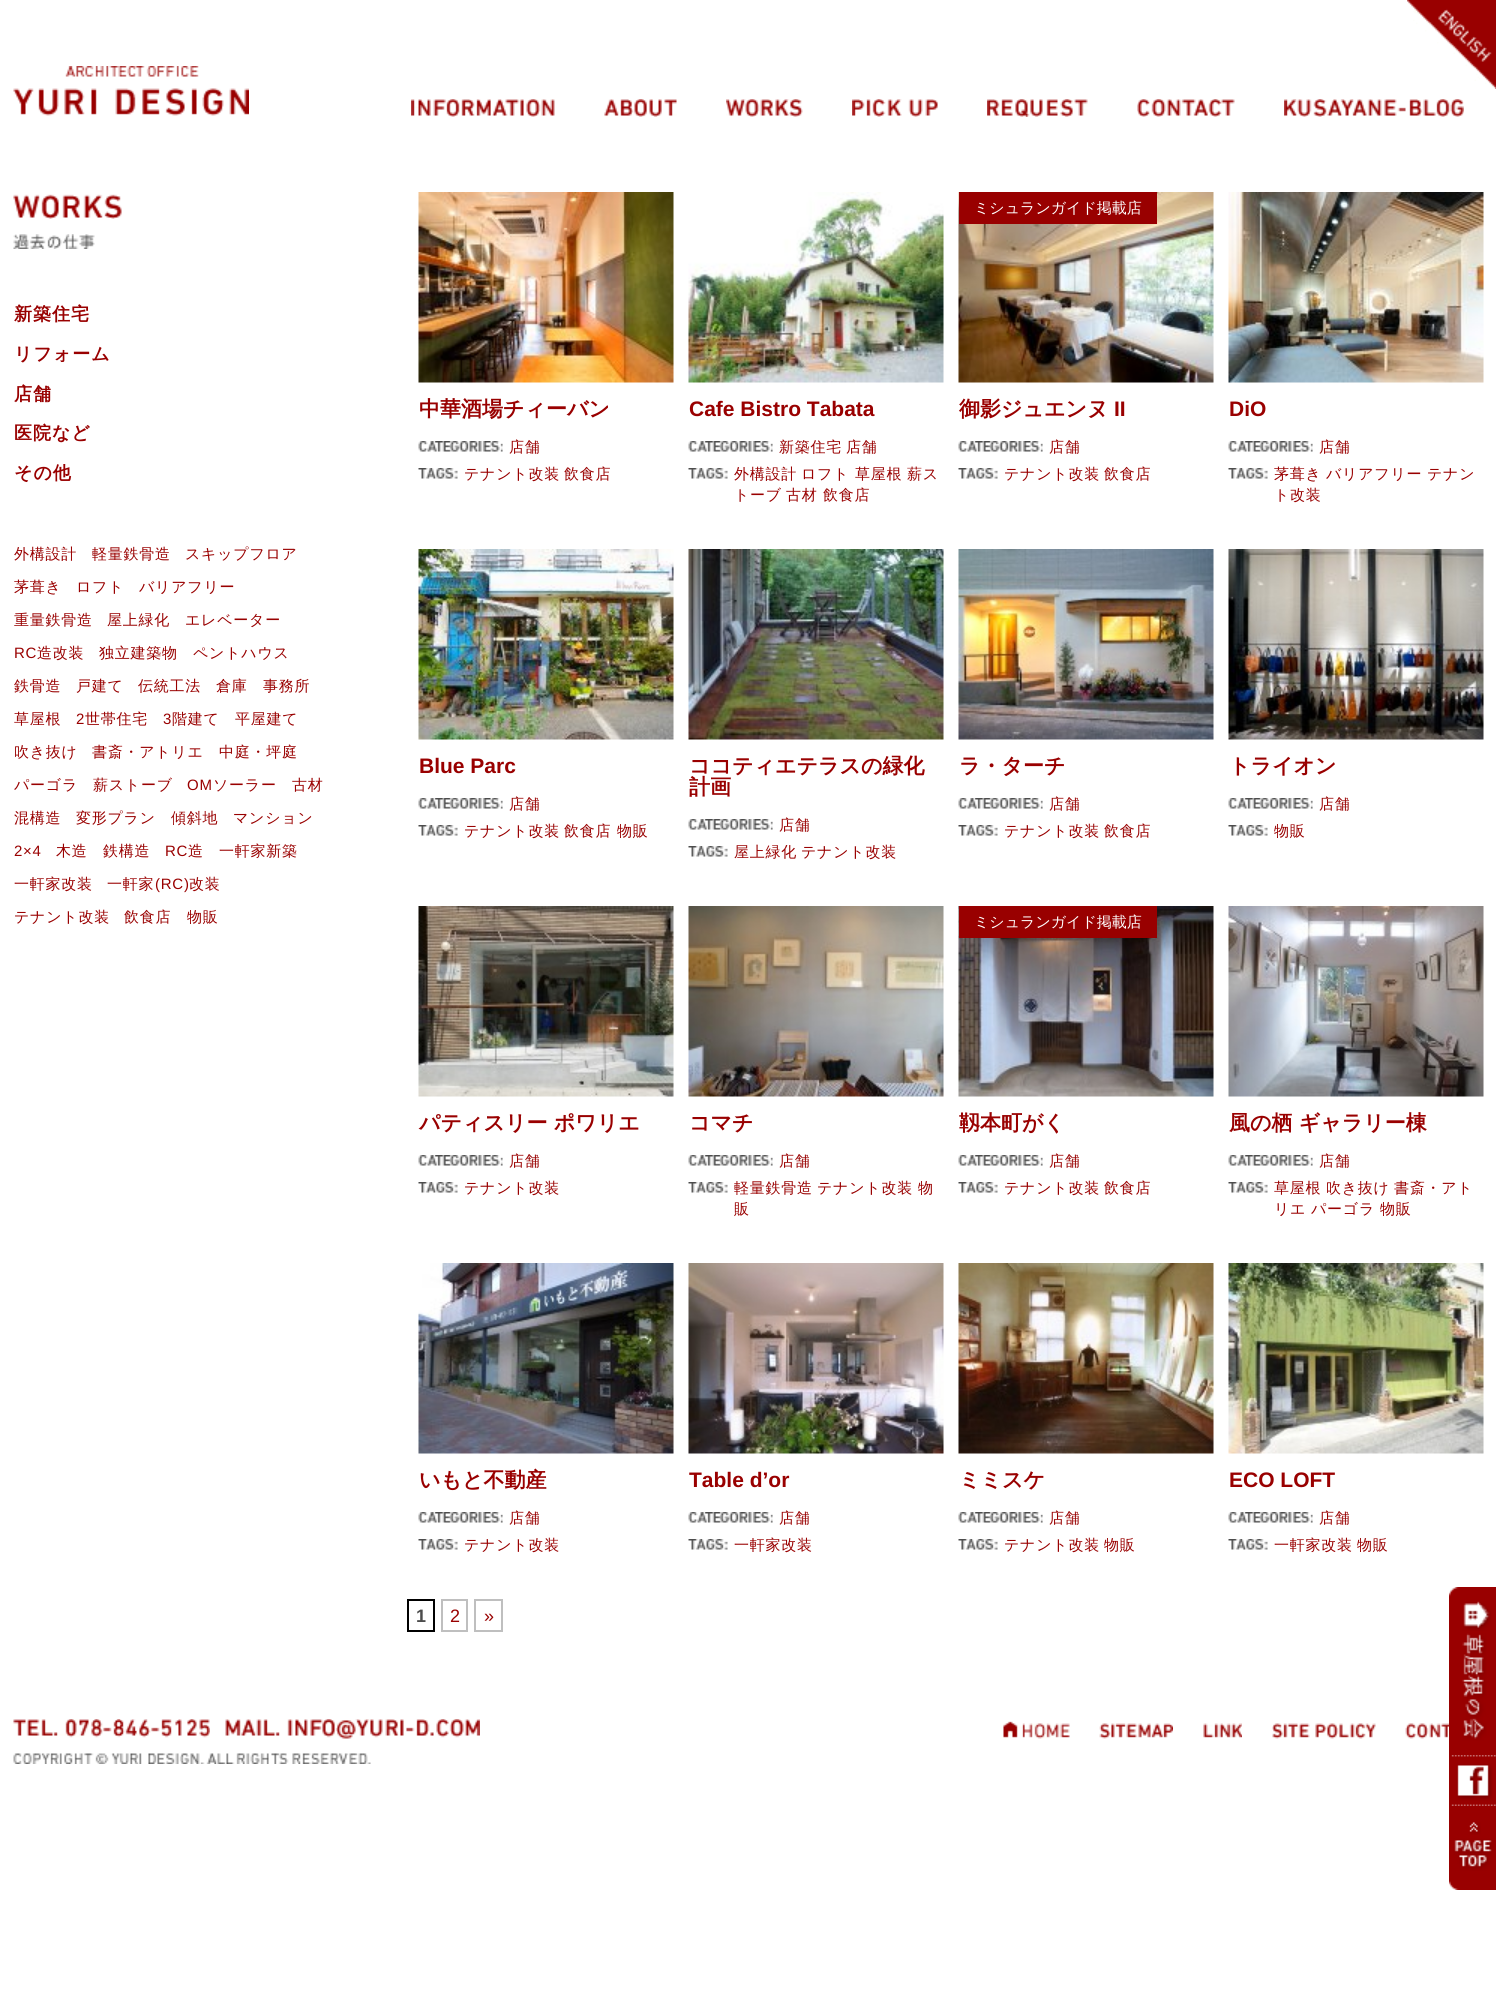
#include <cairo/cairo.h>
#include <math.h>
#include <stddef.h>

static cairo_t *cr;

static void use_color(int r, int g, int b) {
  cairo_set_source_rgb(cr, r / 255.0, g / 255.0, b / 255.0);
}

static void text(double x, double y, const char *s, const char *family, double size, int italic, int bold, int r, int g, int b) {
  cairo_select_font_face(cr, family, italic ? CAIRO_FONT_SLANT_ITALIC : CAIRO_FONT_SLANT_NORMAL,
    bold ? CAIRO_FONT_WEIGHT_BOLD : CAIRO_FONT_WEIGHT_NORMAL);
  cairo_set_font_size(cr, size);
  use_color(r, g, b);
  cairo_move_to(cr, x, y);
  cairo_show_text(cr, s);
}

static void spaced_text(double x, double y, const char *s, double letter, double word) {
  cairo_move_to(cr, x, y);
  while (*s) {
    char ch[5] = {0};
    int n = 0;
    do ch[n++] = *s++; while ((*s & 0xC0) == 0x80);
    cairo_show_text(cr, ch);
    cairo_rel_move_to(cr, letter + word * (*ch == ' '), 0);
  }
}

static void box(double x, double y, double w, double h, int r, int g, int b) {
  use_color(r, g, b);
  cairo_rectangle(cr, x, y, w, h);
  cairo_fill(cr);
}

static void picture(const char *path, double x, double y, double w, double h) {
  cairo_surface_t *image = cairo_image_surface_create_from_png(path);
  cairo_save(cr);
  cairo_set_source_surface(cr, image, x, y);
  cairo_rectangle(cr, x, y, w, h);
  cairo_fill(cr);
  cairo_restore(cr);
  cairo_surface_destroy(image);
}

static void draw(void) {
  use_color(255, 255, 255);
  cairo_paint(cr);
  picture("img_01.png", 1407, 0, 89, 89);
  picture("img_02.png", 13, 66, 236, 50);
  picture("img_03.png", 411, 99, 144, 18);
  picture("img_04.png", 604, 99, 73, 18);
  picture("img_05.png", 726, 99, 77, 18);
  picture("img_06.png", 852, 99, 86, 18);
  picture("img_07.png", 987, 99, 101, 18);
  picture("img_08.png", 1137, 99, 98, 18);
  picture("img_09.png", 1284, 99, 180, 18);
  picture("img_10.png", 13, 194, 109, 25);
  picture("img_11.png", 13, 234, 82, 15);
  picture("img_12.png", 418, 192, 256, 191);
  picture("img_13.png", 418, 441, 85, 11);
  picture("img_14.png", 418, 468, 40, 11);
  picture("img_15.png", 688, 192, 256, 191);
  picture("img_13.png", 688, 441, 85, 11);
  picture("img_14.png", 688, 468, 40, 11);
  picture("img_16.png", 958, 192, 256, 191);
  box(959, 192, 198, 32, 153, 0, 0);
  picture("img_17.png", 958, 441, 85, 11);
  picture("img_18.png", 958, 468, 40, 11);
  picture("img_19.png", 1228, 192, 256, 191);
  picture("img_17.png", 1228, 441, 85, 11);
  picture("img_18.png", 1228, 468, 40, 11);
  picture("img_20.png", 418, 549, 256, 191);
  picture("img_13.png", 418, 798, 85, 11);
  picture("img_14.png", 418, 825, 40, 11);
  picture("img_21.png", 688, 549, 256, 191);
  picture("img_13.png", 688, 819, 85, 11);
  picture("img_14.png", 688, 846, 40, 11);
  picture("img_22.png", 958, 549, 256, 191);
  picture("img_17.png", 958, 798, 85, 11);
  picture("img_18.png", 958, 825, 40, 11);
  picture("img_23.png", 1228, 549, 256, 191);
  picture("img_17.png", 1228, 798, 85, 11);
  picture("img_18.png", 1228, 825, 40, 11);
  picture("img_24.png", 418, 906, 256, 191);
  picture("img_13.png", 418, 1155, 85, 11);
  picture("img_14.png", 418, 1182, 40, 11);
  picture("img_25.png", 688, 906, 256, 191);
  picture("img_13.png", 688, 1155, 85, 11);
  picture("img_14.png", 688, 1182, 40, 11);
  picture("img_26.png", 958, 906, 256, 191);
  box(959, 906, 198, 32, 153, 0, 0);
  picture("img_17.png", 958, 1155, 85, 11);
  picture("img_18.png", 958, 1182, 40, 11);
  picture("img_27.png", 1228, 906, 256, 191);
  picture("img_17.png", 1228, 1155, 85, 11);
  picture("img_18.png", 1228, 1182, 40, 11);
  picture("img_28.png", 418, 1263, 256, 191);
  picture("img_13.png", 418, 1512, 85, 11);
  picture("img_14.png", 418, 1539, 40, 11);
  picture("img_29.png", 688, 1263, 256, 191);
  picture("img_13.png", 688, 1512, 85, 11);
  picture("img_14.png", 688, 1539, 40, 11);
  picture("img_30.png", 958, 1263, 256, 191);
  picture("img_17.png", 958, 1512, 85, 11);
  picture("img_18.png", 958, 1539, 40, 11);
  picture("img_31.png", 1228, 1263, 256, 191);
  picture("img_17.png", 1228, 1512, 85, 11);
  picture("img_18.png", 1228, 1539, 40, 11);
  cairo_rectangle(cr, 408, 1600, 26, 31);
  use_color(0, 0, 0);
  cairo_stroke(cr);
  cairo_rectangle(cr, 442, 1600, 25, 31);
  use_color(191, 191, 191);
  cairo_stroke(cr);
  cairo_rectangle(cr, 475, 1600, 27, 31);
  cairo_stroke(cr);
  picture("img_32.png", 13, 1753, 358, 11);
  picture("img_33.png", 1449, 1587, 47, 168);
  picture("img_34.png", 1449, 1755, 47, 51);
  picture("img_35.png", 1449, 1806, 47, 84);
  picture("img_36.png", 13, 1719, 197, 19);
  picture("img_37.png", 225, 1719, 255, 20);
  picture("img_38.png", 1003, 1721, 67, 18);
  picture("img_39.png", 1099, 1723, 74, 16);
  picture("img_40.png", 1203, 1723, 39, 15);
  picture("img_41.png", 1272, 1723, 104, 16);
  picture("img_42.png", 1405, 1723, 44, 16);
  cairo_select_font_face(cr, "WenQuanYi Zen Hei", CAIRO_FONT_SLANT_NORMAL, CAIRO_FONT_WEIGHT_BOLD);
  cairo_set_font_size(cr, 18);
  use_color(153, 0, 0);
  spaced_text(14, 320, "新築住宅", 1, 0);
  spaced_text(14, 360, "リフォーム", 1, 0);
  spaced_text(14, 400, "店舗", 1, 0);
  spaced_text(14, 439, "医院など", 1, 0);
  spaced_text(14, 479, "その他", 1, 0);
  cairo_select_font_face(cr, "WenQuanYi Zen Hei Medium", CAIRO_FONT_SLANT_NORMAL, CAIRO_FONT_WEIGHT_NORMAL);
  cairo_set_font_size(cr, 15);
  spaced_text(14, 559, "外構設計", 0.75, 0);
  spaced_text(92, 559, "軽量鉄骨造", 0.75, 0);
  spaced_text(185, 559, "スキップフロア", 0.75, 0);
  spaced_text(14, 592, "茅葺き", 0.75, 0);
  spaced_text(76, 592, "ロフト", 0.75, 0);
  spaced_text(139, 592, "バリアフリー", 0.75, 0);
  spaced_text(14, 625, "重量鉄骨造", 0.75, 0);
  spaced_text(107, 625, "屋上緑化", 0.75, 0);
  spaced_text(185, 625, "エレベーター", 0.75, 0);
  cairo_select_font_face(cr, "Liberation Sans", CAIRO_FONT_SLANT_NORMAL, CAIRO_FONT_WEIGHT_NORMAL);
  spaced_text(14, 658, "RC", 0.75, 0);
  cairo_select_font_face(cr, "WenQuanYi Zen Hei Medium", CAIRO_FONT_SLANT_NORMAL, CAIRO_FONT_WEIGHT_NORMAL);
  spaced_text(37, 658, "造改装", 0.75, 0);
  spaced_text(99, 658, "独立建築物", 0.75, 0);
  spaced_text(193, 658, "ペントハウス", 0.75, 0);
  spaced_text(14, 691, "鉄骨造", 0.75, 0);
  spaced_text(76, 691, "戸建て", 0.75, 0);
  spaced_text(138, 691, "伝統工法", 0.75, 0);
  spaced_text(216, 691, "倉庫", 0.75, 0);
  spaced_text(263, 691, "事務所", 0.75, 0);
  spaced_text(14, 724, "草屋根", 0.75, 0);
  cairo_select_font_face(cr, "Liberation Sans", CAIRO_FONT_SLANT_NORMAL, CAIRO_FONT_WEIGHT_NORMAL);
  spaced_text(76, 724, "2", 0.75, 0);
  cairo_select_font_face(cr, "WenQuanYi Zen Hei Medium", CAIRO_FONT_SLANT_NORMAL, CAIRO_FONT_WEIGHT_NORMAL);
  spaced_text(85, 724, "世帯住宅", 0.75, 0);
  cairo_select_font_face(cr, "Liberation Sans", CAIRO_FONT_SLANT_NORMAL, CAIRO_FONT_WEIGHT_NORMAL);
  spaced_text(163, 724, "3", 0.75, 0);
  cairo_select_font_face(cr, "WenQuanYi Zen Hei Medium", CAIRO_FONT_SLANT_NORMAL, CAIRO_FONT_WEIGHT_NORMAL);
  spaced_text(172, 724, "階建て", 0.75, 0);
  spaced_text(235, 724, "平屋建て", 0.75, 0);
  spaced_text(14, 757, "吹き抜け", 0.75, 0);
  spaced_text(92, 757, "書斎・アトリエ", 0.75, 0);
  spaced_text(219, 757, "中庭・坪庭", 0.75, 0);
  spaced_text(14, 790, "パーゴラ", 0.75, 0);
  spaced_text(93, 790, "薪ストーブ", 0.75, 0);
  cairo_select_font_face(cr, "Liberation Sans", CAIRO_FONT_SLANT_NORMAL, CAIRO_FONT_WEIGHT_NORMAL);
  spaced_text(187, 790, "OM", 0.75, 0);
  cairo_select_font_face(cr, "WenQuanYi Zen Hei Medium", CAIRO_FONT_SLANT_NORMAL, CAIRO_FONT_WEIGHT_NORMAL);
  spaced_text(213, 790, "ソーラー", 0.75, 0);
  spaced_text(292, 790, "古材", 0.75, 0);
  spaced_text(14, 823, "混構造", 0.75, 0);
  spaced_text(76, 823, "変形プラン", 0.75, 0);
  spaced_text(171, 823, "傾斜地", 0.75, 0);
  spaced_text(233, 823, "マンション", 0.75, 0);
  cairo_select_font_face(cr, "Liberation Sans", CAIRO_FONT_SLANT_NORMAL, CAIRO_FONT_WEIGHT_NORMAL);
  spaced_text(14, 856, "2×4", 0.75, 0);
  cairo_select_font_face(cr, "WenQuanYi Zen Hei Medium", CAIRO_FONT_SLANT_NORMAL, CAIRO_FONT_WEIGHT_NORMAL);
  spaced_text(56, 856, "木造", 0.75, 0);
  spaced_text(103, 856, "鉄構造", 0.75, 0);
  cairo_select_font_face(cr, "Liberation Sans", CAIRO_FONT_SLANT_NORMAL, CAIRO_FONT_WEIGHT_NORMAL);
  spaced_text(165, 856, "RC", 0.75, 0);
  cairo_select_font_face(cr, "WenQuanYi Zen Hei Medium", CAIRO_FONT_SLANT_NORMAL, CAIRO_FONT_WEIGHT_NORMAL);
  spaced_text(188, 856, "造", 0.75, 0);
  spaced_text(219, 856, "一軒家新築", 0.75, 0);
  spaced_text(14, 889, "一軒家改装", 0.75, 0);
  spaced_text(107, 889, "一軒家", 0.75, 0);
  cairo_select_font_face(cr, "Liberation Sans", CAIRO_FONT_SLANT_NORMAL, CAIRO_FONT_WEIGHT_NORMAL);
  spaced_text(155, 889, "(RC)", 0.75, 0);
  cairo_select_font_face(cr, "WenQuanYi Zen Hei Medium", CAIRO_FONT_SLANT_NORMAL, CAIRO_FONT_WEIGHT_NORMAL);
  spaced_text(189, 889, "改装", 0.75, 0);
  spaced_text(14, 922, "テナント改装", 0.75, 0);
  spaced_text(124, 922, "飲食店", 0.75, 0);
  spaced_text(187, 922, "物販", 0.75, 0);
  text(419, 416, "中華酒場チィーバン", "WenQuanYi Zen Hei", 21, 0, 1, 153, 0, 0);
  cairo_select_font_face(cr, "WenQuanYi Zen Hei Medium", CAIRO_FONT_SLANT_NORMAL, CAIRO_FONT_WEIGHT_NORMAL);
  cairo_set_font_size(cr, 15);
  spaced_text(509, 452, "店舗", 0.75, 0);
  spaced_text(464, 479, "テナント改装", 0.75, 0);
  spaced_text(564, 479, "飲食店", 0.75, 0);
  text(689, 416, "Cafe Bistro Tabata", "Liberation Sans", 21, 0, 1, 153, 0, 0);
  cairo_select_font_face(cr, "WenQuanYi Zen Hei Medium", CAIRO_FONT_SLANT_NORMAL, CAIRO_FONT_WEIGHT_NORMAL);
  cairo_set_font_size(cr, 15);
  spaced_text(779, 452, "新築住宅", 0.75, 0);
  spaced_text(846, 452, "店舗", 0.75, 0);
  spaced_text(734, 479, "外構設計", 0.75, 0);
  spaced_text(801, 479, "ロフト", 0.75, 0);
  spaced_text(855, 479, "草屋根", 0.75, 0);
  spaced_text(907, 479, "薪ス", 0.75, 0);
  spaced_text(734, 500, "トーブ", 0.75, 0);
  spaced_text(786, 500, "古材", 0.75, 0);
  spaced_text(823, 500, "飲食店", 0.75, 0);
  text(974, 213, "ミシュランガイド掲載店", "WenQuanYi Zen Hei Medium", 15, 0, 0, 255, 255, 255);
  text(959, 416, "御影ジュエンヌ", "WenQuanYi Zen Hei", 21, 0, 1, 153, 0, 0);
  text(1114, 416, "II", "Liberation Sans", 21, 0, 1, 153, 0, 0);
  cairo_select_font_face(cr, "WenQuanYi Zen Hei Medium", CAIRO_FONT_SLANT_NORMAL, CAIRO_FONT_WEIGHT_NORMAL);
  cairo_set_font_size(cr, 15);
  spaced_text(1049, 452, "店舗", 0.75, 0);
  spaced_text(1004, 479, "テナント改装", 0.75, 0);
  spaced_text(1104, 479, "飲食店", 0.75, 0);
  text(1229, 416, "DiO", "Liberation Sans", 21, 0, 1, 153, 0, 0);
  cairo_select_font_face(cr, "WenQuanYi Zen Hei Medium", CAIRO_FONT_SLANT_NORMAL, CAIRO_FONT_WEIGHT_NORMAL);
  cairo_set_font_size(cr, 15);
  spaced_text(1319, 452, "店舗", 0.75, 0);
  spaced_text(1274, 479, "茅葺き", 0.75, 0);
  spaced_text(1326, 479, "バリアフリー", 0.75, 0);
  spaced_text(1427, 479, "テナン", 0.75, 0);
  spaced_text(1274, 500, "ト改装", 0.75, 0);
  text(419, 773, "Blue Parc", "Liberation Sans", 21, 0, 1, 153, 0, 0);
  cairo_select_font_face(cr, "WenQuanYi Zen Hei Medium", CAIRO_FONT_SLANT_NORMAL, CAIRO_FONT_WEIGHT_NORMAL);
  cairo_set_font_size(cr, 15);
  spaced_text(509, 809, "店舗", 0.75, 0);
  spaced_text(464, 836, "テナント改装", 0.75, 0);
  spaced_text(564, 836, "飲食店", 0.75, 0);
  spaced_text(617, 836, "物販", 0.75, 0);
  text(689, 773, "ココティエテラスの緑化", "WenQuanYi Zen Hei", 21, 0, 1, 153, 0, 0);
  text(689, 794, "計画", "WenQuanYi Zen Hei", 21, 0, 1, 153, 0, 0);
  cairo_select_font_face(cr, "WenQuanYi Zen Hei Medium", CAIRO_FONT_SLANT_NORMAL, CAIRO_FONT_WEIGHT_NORMAL);
  cairo_set_font_size(cr, 15);
  spaced_text(779, 830, "店舗", 0.75, 0);
  spaced_text(734, 857, "屋上緑化", 0.75, 0);
  spaced_text(801, 857, "テナント改装", 0.75, 0);
  text(959, 773, "ラ・ターチ", "WenQuanYi Zen Hei", 21, 0, 1, 153, 0, 0);
  cairo_select_font_face(cr, "WenQuanYi Zen Hei Medium", CAIRO_FONT_SLANT_NORMAL, CAIRO_FONT_WEIGHT_NORMAL);
  cairo_set_font_size(cr, 15);
  spaced_text(1049, 809, "店舗", 0.75, 0);
  spaced_text(1004, 836, "テナント改装", 0.75, 0);
  spaced_text(1104, 836, "飲食店", 0.75, 0);
  text(1229, 773, "トライオン", "WenQuanYi Zen Hei", 21, 0, 1, 153, 0, 0);
  cairo_select_font_face(cr, "WenQuanYi Zen Hei Medium", CAIRO_FONT_SLANT_NORMAL, CAIRO_FONT_WEIGHT_NORMAL);
  cairo_set_font_size(cr, 15);
  spaced_text(1319, 809, "店舗", 0.75, 0);
  spaced_text(1274, 836, "物販", 0.75, 0);
  text(419, 1130, "パティスリー ポワリエ", "WenQuanYi Zen Hei", 21, 0, 1, 153, 0, 0);
  cairo_select_font_face(cr, "WenQuanYi Zen Hei Medium", CAIRO_FONT_SLANT_NORMAL, CAIRO_FONT_WEIGHT_NORMAL);
  cairo_set_font_size(cr, 15);
  spaced_text(509, 1166, "店舗", 0.75, 0);
  spaced_text(464, 1193, "テナント改装", 0.75, 0);
  text(689, 1130, "コマチ", "WenQuanYi Zen Hei", 21, 0, 1, 153, 0, 0);
  cairo_select_font_face(cr, "WenQuanYi Zen Hei Medium", CAIRO_FONT_SLANT_NORMAL, CAIRO_FONT_WEIGHT_NORMAL);
  cairo_set_font_size(cr, 15);
  spaced_text(779, 1166, "店舗", 0.75, 0);
  spaced_text(734, 1193, "軽量鉄骨造", 0.75, 0);
  spaced_text(817, 1193, "テナント改装", 0.75, 0);
  spaced_text(918, 1193, "物", 0.75, 0);
  spaced_text(734, 1214, "販", 0.75, 0);
  text(974, 927, "ミシュランガイド掲載店", "WenQuanYi Zen Hei Medium", 15, 0, 0, 255, 255, 255);
  text(959, 1130, "靱本町がく", "WenQuanYi Zen Hei", 21, 0, 1, 153, 0, 0);
  cairo_select_font_face(cr, "WenQuanYi Zen Hei Medium", CAIRO_FONT_SLANT_NORMAL, CAIRO_FONT_WEIGHT_NORMAL);
  cairo_set_font_size(cr, 15);
  spaced_text(1049, 1166, "店舗", 0.75, 0);
  spaced_text(1004, 1193, "テナント改装", 0.75, 0);
  spaced_text(1104, 1193, "飲食店", 0.75, 0);
  text(1229, 1130, "風の栖 ギャラリー棟", "WenQuanYi Zen Hei", 21, 0, 1, 153, 0, 0);
  cairo_select_font_face(cr, "WenQuanYi Zen Hei Medium", CAIRO_FONT_SLANT_NORMAL, CAIRO_FONT_WEIGHT_NORMAL);
  cairo_set_font_size(cr, 15);
  spaced_text(1319, 1166, "店舗", 0.75, 0);
  spaced_text(1274, 1193, "草屋根", 0.75, 0);
  spaced_text(1326, 1193, "吹き抜け", 0.75, 0);
  spaced_text(1394, 1193, "書斎・アト", 0.75, 0);
  spaced_text(1274, 1214, "リエ", 0.75, 0);
  spaced_text(1311, 1214, "パーゴラ", 0.75, 0);
  spaced_text(1380, 1214, "物販", 0.75, 0);
  text(419, 1487, "いもと不動産", "WenQuanYi Zen Hei", 21, 0, 1, 153, 0, 0);
  cairo_select_font_face(cr, "WenQuanYi Zen Hei Medium", CAIRO_FONT_SLANT_NORMAL, CAIRO_FONT_WEIGHT_NORMAL);
  cairo_set_font_size(cr, 15);
  spaced_text(509, 1523, "店舗", 0.75, 0);
  spaced_text(464, 1550, "テナント改装", 0.75, 0);
  text(689, 1487, "Table d’or", "Liberation Sans", 21, 0, 1, 153, 0, 0);
  cairo_select_font_face(cr, "WenQuanYi Zen Hei Medium", CAIRO_FONT_SLANT_NORMAL, CAIRO_FONT_WEIGHT_NORMAL);
  cairo_set_font_size(cr, 15);
  spaced_text(779, 1523, "店舗", 0.75, 0);
  spaced_text(734, 1550, "一軒家改装", 0.75, 0);
  text(959, 1487, "ミミスケ", "WenQuanYi Zen Hei", 21, 0, 1, 153, 0, 0);
  cairo_select_font_face(cr, "WenQuanYi Zen Hei Medium", CAIRO_FONT_SLANT_NORMAL, CAIRO_FONT_WEIGHT_NORMAL);
  cairo_set_font_size(cr, 15);
  spaced_text(1049, 1523, "店舗", 0.75, 0);
  spaced_text(1004, 1550, "テナント改装", 0.75, 0);
  spaced_text(1104, 1550, "物販", 0.75, 0);
  text(1229, 1487, "ECO LOFT", "Liberation Sans", 21, 0, 1, 153, 0, 0);
  cairo_select_font_face(cr, "WenQuanYi Zen Hei Medium", CAIRO_FONT_SLANT_NORMAL, CAIRO_FONT_WEIGHT_NORMAL);
  cairo_set_font_size(cr, 15);
  spaced_text(1319, 1523, "店舗", 0.75, 0);
  spaced_text(1274, 1550, "一軒家改装", 0.75, 0);
  spaced_text(1357, 1550, "物販", 0.75, 0);
  text(416, 1622, "1", "Liberation Sans", 18, 0, 1, 76, 76, 76);
  text(450, 1622, "2", "Liberation Sans", 18, 0, 0, 153, 0, 0);
  text(484, 1622, "»", "Liberation Sans", 18, 0, 0, 153, 0, 0);
}

int main(void) {
  cairo_surface_t *surface = cairo_image_surface_create(CAIRO_FORMAT_RGB24, 1496, 1995);
  cr = cairo_create(surface);
  cairo_font_options_t *options = cairo_font_options_create();
  cairo_font_options_set_hint_metrics(options, CAIRO_HINT_METRICS_OFF);
  cairo_font_options_set_hint_style(options, CAIRO_HINT_STYLE_NONE);
  cairo_set_font_options(cr, options);
  cairo_set_miter_limit(cr, 4);
  draw();
  cairo_surface_write_to_png(surface, "out.png");
  cairo_font_options_destroy(options);
  cairo_destroy(cr);
  cairo_surface_destroy(surface);
  return 0;
}
